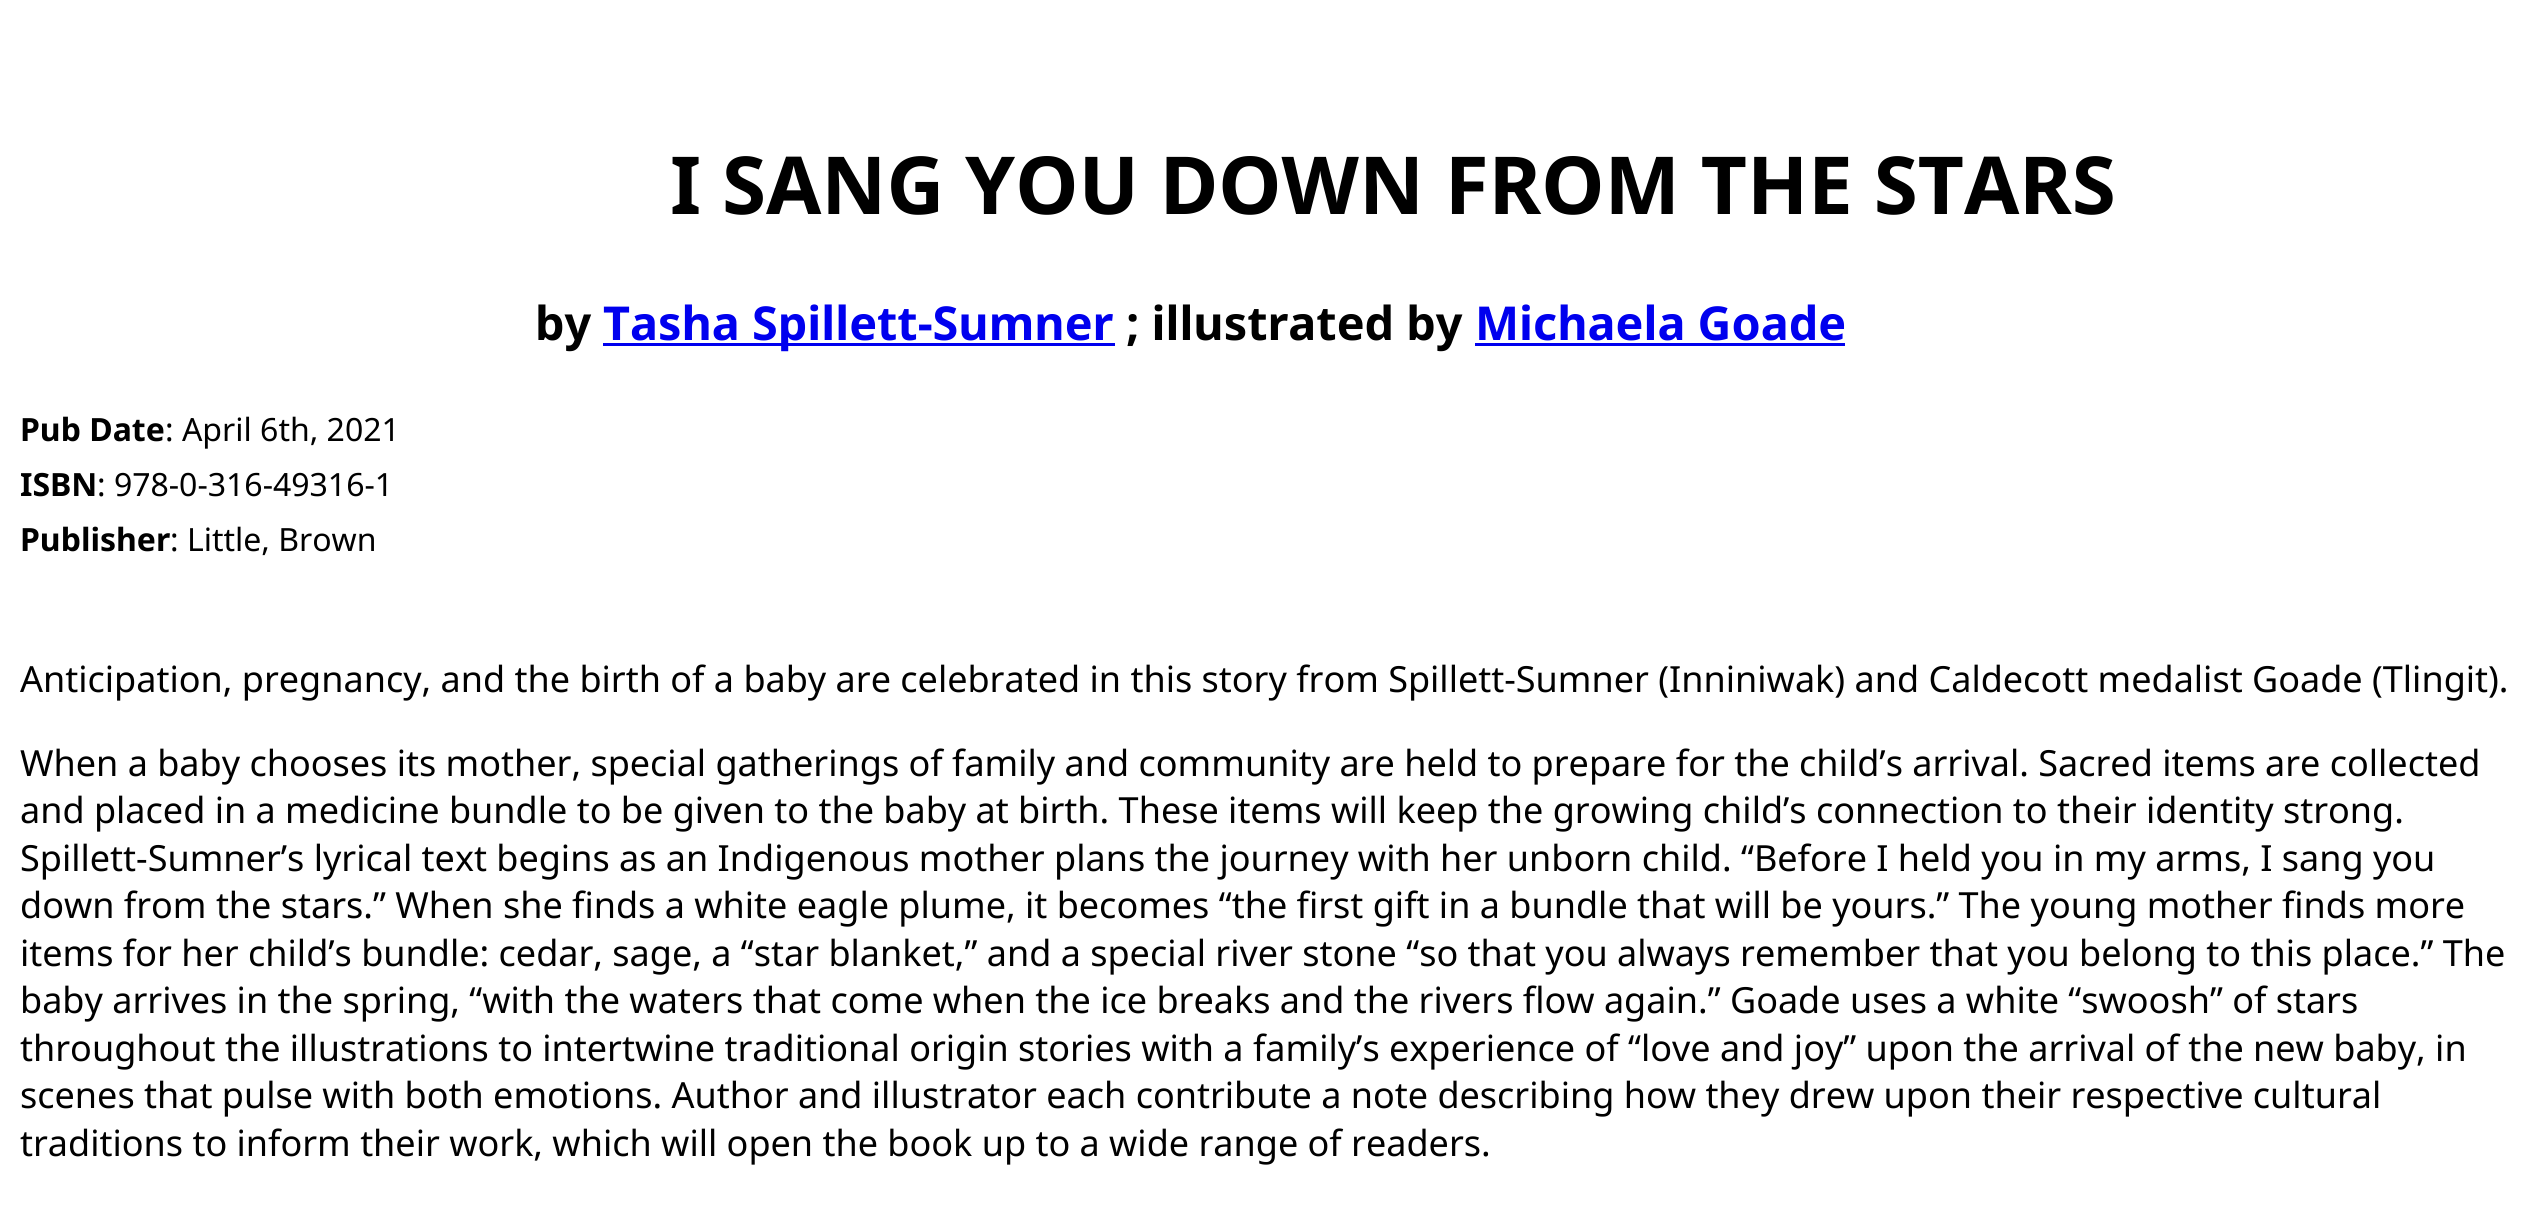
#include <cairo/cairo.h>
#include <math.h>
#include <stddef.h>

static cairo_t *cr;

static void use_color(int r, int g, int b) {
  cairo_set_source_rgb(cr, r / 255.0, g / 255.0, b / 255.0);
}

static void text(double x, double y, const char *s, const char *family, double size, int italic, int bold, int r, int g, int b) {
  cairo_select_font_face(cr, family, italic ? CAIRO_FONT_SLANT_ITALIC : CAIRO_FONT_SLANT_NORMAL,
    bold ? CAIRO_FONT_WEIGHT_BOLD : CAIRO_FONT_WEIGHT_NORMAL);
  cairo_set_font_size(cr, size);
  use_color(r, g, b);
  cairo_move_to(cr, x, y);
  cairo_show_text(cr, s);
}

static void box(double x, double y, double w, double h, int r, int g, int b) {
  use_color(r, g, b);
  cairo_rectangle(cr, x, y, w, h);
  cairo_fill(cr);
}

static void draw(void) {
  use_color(255, 255, 255);
  cairo_paint(cr);
  box(603, 343, 512, 3, 0, 0, 238);
  box(1475, 343, 370, 3, 0, 0, 238);
  text(670, 214, "I SANG YOU DOWN FROM THE STARS", "Noto Sans", 80, 0, 1, 0, 0, 0);
  text(535, 340, "by", "Noto Sans", 46.75, 0, 1, 0, 0, 0);
  text(603, 340, "Tasha Spillett-Sumner", "Noto Sans", 46.75, 0, 1, 0, 0, 238);
  text(1126, 340, "; illustrated by", "Noto Sans", 46.75, 0, 1, 0, 0, 0);
  text(1475, 340, "Michaela Goade", "Noto Sans", 46.75, 0, 1, 0, 0, 238);
  text(20, 441, "Pub Date", "Noto Sans", 32, 0, 1, 0, 0, 0);
  text(165, 441, ": April 6th, 2021", "Noto Sans", 32, 0, 0, 0, 0, 0);
  text(20, 496, "ISBN", "Noto Sans", 32, 0, 1, 0, 0, 0);
  text(97, 496, ": 978-0-316-49316-1", "Noto Sans", 32, 0, 0, 0, 0, 0);
  text(20, 551, "Publisher", "Noto Sans", 32, 0, 1, 0, 0, 0);
  text(170, 551, ": Little, Brown", "Noto Sans", 32, 0, 0, 0, 0, 0);
  text(20, 692, "Anticipation, pregnancy, and the birth of a baby are celebrated in this story from Spillett-Sumner (Inniniwak) and Caldecott medalist Goade (Tlingit).", "Noto Sans", 36, 0, 0, 0, 0, 0);
  text(20, 776, "When a baby chooses its mother, special gatherings of family and community are held to prepare for the child’s arrival. Sacred items are collected", "Noto Sans", 36, 0, 0, 0, 0, 0);
  text(20, 823, "and placed in a medicine bundle to be given to the baby at birth. These items will keep the growing child’s connection to their identity strong.", "Noto Sans", 36, 0, 0, 0, 0, 0);
  text(20, 871, "Spillett-Sumner’s lyrical text begins as an Indigenous mother plans the journey with her unborn child. “Before I held you in my arms, I sang you", "Noto Sans", 36, 0, 0, 0, 0, 0);
  text(20, 918, "down from the stars.” When she finds a white eagle plume, it becomes “the first gift in a bundle that will be yours.” The young mother finds more", "Noto Sans", 36, 0, 0, 0, 0, 0);
  text(20, 966, "items for her child’s bundle: cedar, sage, a “star blanket,” and a special river stone “so that you always remember that you belong to this place.” The", "Noto Sans", 36, 0, 0, 0, 0, 0);
  text(20, 1013, "baby arrives in the spring, “with the waters that come when the ice breaks and the rivers flow again.” Goade uses a white “swoosh” of stars", "Noto Sans", 36, 0, 0, 0, 0, 0);
  text(20, 1061, "throughout the illustrations to intertwine traditional origin stories with a family’s experience of “love and joy” upon the arrival of the new baby, in", "Noto Sans", 36, 0, 0, 0, 0, 0);
  text(20, 1108, "scenes that pulse with both emotions. Author and illustrator each contribute a note describing how they drew upon their respective cultural", "Noto Sans", 36, 0, 0, 0, 0, 0);
  text(20, 1156, "traditions to inform their work, which will open the book up to a wide range of readers.", "Noto Sans", 36, 0, 0, 0, 0, 0);
}

int main(void) {
  cairo_surface_t *surface = cairo_image_surface_create(CAIRO_FORMAT_RGB24, 2532, 1215);
  cr = cairo_create(surface);
  cairo_font_options_t *options = cairo_font_options_create();
  cairo_font_options_set_hint_metrics(options, CAIRO_HINT_METRICS_OFF);
  cairo_font_options_set_hint_style(options, CAIRO_HINT_STYLE_NONE);
  cairo_set_font_options(cr, options);
  cairo_set_miter_limit(cr, 4);
  draw();
  cairo_surface_write_to_png(surface, "out.png");
  cairo_font_options_destroy(options);
  cairo_destroy(cr);
  cairo_surface_destroy(surface);
  return 0;
}
